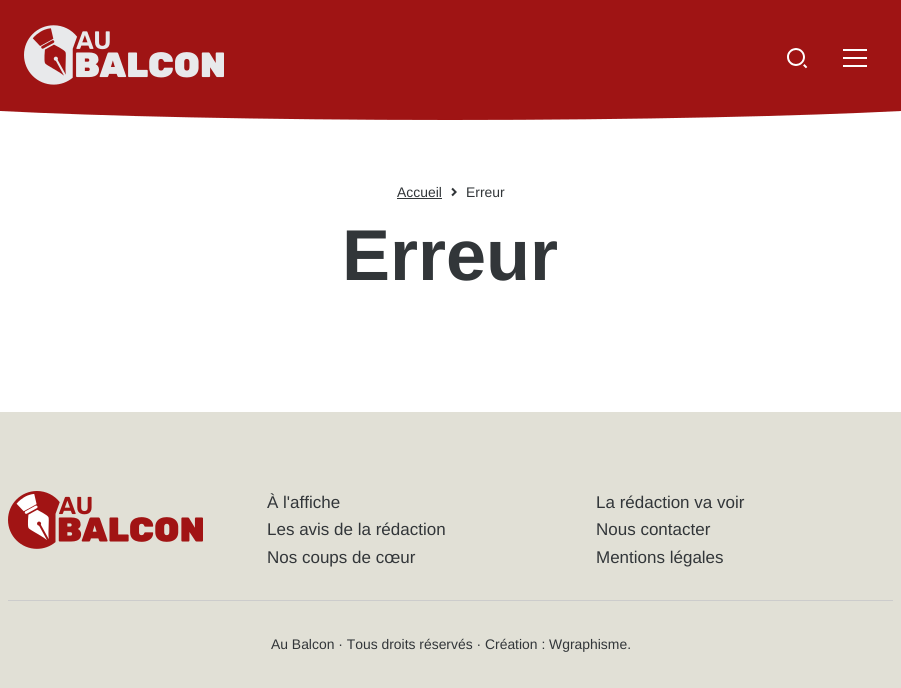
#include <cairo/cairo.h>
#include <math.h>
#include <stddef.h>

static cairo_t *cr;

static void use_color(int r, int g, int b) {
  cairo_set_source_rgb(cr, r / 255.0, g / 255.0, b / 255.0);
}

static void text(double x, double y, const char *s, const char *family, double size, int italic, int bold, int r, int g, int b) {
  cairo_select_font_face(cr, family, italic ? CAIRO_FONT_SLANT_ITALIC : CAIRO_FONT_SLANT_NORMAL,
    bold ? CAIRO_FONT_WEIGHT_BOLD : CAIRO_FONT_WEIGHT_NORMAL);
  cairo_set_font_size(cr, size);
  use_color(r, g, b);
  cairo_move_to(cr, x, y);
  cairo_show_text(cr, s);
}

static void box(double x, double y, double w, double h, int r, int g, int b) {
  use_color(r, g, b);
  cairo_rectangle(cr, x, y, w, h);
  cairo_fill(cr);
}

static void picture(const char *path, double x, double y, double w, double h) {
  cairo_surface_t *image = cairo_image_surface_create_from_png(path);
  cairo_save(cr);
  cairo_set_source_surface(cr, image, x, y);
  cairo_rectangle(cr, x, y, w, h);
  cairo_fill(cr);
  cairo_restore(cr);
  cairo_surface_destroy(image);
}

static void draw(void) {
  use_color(255, 255, 255);
  cairo_paint(cr);
  box(0, 0, 901, 100, 159, 20, 20);
  picture("img_01.png", 24, 25, 200, 60);
  picture("img_02.png", 787, 48, 21, 21);
  box(843, 57, 24, 2, 255, 255, 255);
  box(843, 49, 24, 2, 255, 255, 255);
  box(843, 65, 24, 2, 255, 255, 255);
  use_color(159, 20, 20);
  cairo_new_path(cr);
  cairo_move_to(cr, 0, 100);
  cairo_line_to(cr, 901, 100);
  cairo_line_to(cr, 901, 111);
  cairo_curve_to(cr, 804, 116, 639, 120, 450, 120);
  cairo_curve_to(cr, 262, 120, 97, 116, 0, 111);
  cairo_close_path(cr);
  cairo_fill(cr);
  box(397, 198, 45, 1, 50, 54, 57);
  picture("img_03.png", 451, 187, 6, 10);
  box(0, 412, 901, 276, 225, 224, 214);
  picture("img_04.png", 8, 491, 195, 58);
  box(8, 600, 885, 1, 204, 204, 204);
  text(397, 197, "Accueil", "Liberation Sans", 13.9, 0, 0, 50, 54, 57);
  text(466, 197, "Erreur", "Liberation Sans", 13.9, 0, 0, 50, 54, 57);
  text(342, 280, "Erreur", "Liberation Sans", 72, 0, 1, 50, 54, 57);
  text(267, 508, "À l'affiche", "Liberation Sans", 17, 0, 0, 50, 54, 57);
  text(596, 508, "La rédaction va voir", "Liberation Sans", 17, 0, 0, 50, 54, 57);
  text(267, 535, "Les avis de la rédaction", "Liberation Sans", 17, 0, 0, 50, 54, 57);
  text(596, 535, "Nous contacter", "Liberation Sans", 17, 0, 0, 50, 54, 57);
  text(267, 563, "Nos coups de cœur", "Liberation Sans", 17, 0, 0, 50, 54, 57);
  text(596, 563, "Mentions légales", "Liberation Sans", 17, 0, 0, 50, 54, 57);
  text(271, 649, "Au Balcon · Tous droits réservés · Création : Wgraphisme.", "Liberation Sans", 13.9, 0, 0, 50, 54, 57);
}

int main(void) {
  cairo_surface_t *surface = cairo_image_surface_create(CAIRO_FORMAT_RGB24, 901, 688);
  cr = cairo_create(surface);
  cairo_font_options_t *options = cairo_font_options_create();
  cairo_font_options_set_hint_metrics(options, CAIRO_HINT_METRICS_OFF);
  cairo_font_options_set_hint_style(options, CAIRO_HINT_STYLE_NONE);
  cairo_set_font_options(cr, options);
  cairo_set_miter_limit(cr, 4);
  draw();
  cairo_surface_write_to_png(surface, "out.png");
  cairo_font_options_destroy(options);
  cairo_destroy(cr);
  cairo_surface_destroy(surface);
  return 0;
}
